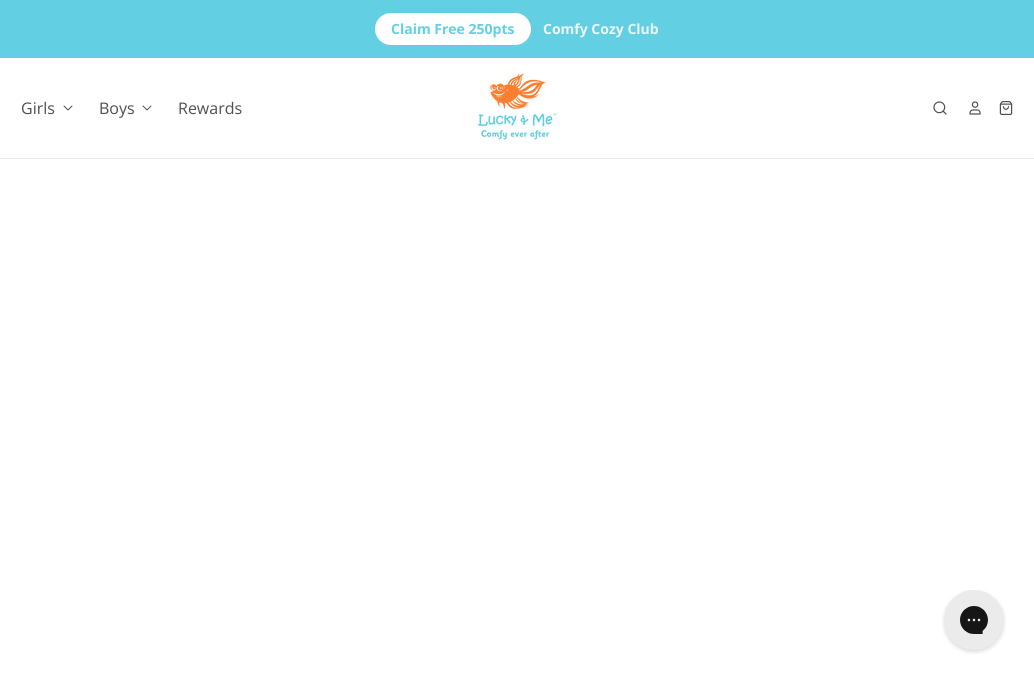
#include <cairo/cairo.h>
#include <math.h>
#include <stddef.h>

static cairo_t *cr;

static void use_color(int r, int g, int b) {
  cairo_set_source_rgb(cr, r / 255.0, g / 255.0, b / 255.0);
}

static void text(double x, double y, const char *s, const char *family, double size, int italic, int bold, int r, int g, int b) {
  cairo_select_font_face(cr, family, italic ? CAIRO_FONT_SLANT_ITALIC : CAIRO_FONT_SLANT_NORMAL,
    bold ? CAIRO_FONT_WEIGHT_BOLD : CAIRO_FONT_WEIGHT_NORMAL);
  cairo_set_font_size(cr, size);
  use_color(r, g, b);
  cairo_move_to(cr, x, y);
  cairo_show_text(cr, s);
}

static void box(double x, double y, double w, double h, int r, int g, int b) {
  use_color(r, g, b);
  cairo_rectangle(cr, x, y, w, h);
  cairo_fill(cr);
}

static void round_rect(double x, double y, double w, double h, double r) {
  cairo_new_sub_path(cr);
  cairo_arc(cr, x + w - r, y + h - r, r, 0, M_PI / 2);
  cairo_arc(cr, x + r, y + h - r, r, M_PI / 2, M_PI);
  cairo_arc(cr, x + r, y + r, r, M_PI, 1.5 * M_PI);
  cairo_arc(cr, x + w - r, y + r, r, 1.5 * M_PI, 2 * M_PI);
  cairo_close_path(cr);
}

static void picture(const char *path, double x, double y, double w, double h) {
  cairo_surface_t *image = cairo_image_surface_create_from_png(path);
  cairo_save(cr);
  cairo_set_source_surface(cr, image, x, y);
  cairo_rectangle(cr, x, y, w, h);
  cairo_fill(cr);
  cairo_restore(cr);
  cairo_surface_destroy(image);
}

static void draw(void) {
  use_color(255, 255, 255);
  cairo_paint(cr);
  box(0, 0, 1034, 58, 99, 207, 227);
  use_color(255, 255, 255);
  round_rect(375, 13, 156, 32, 16);
  cairo_fill(cr);
  box(0, 158, 1034, 1, 231, 231, 231);
  picture("img_01.png", 63, 105, 10, 6);
  picture("img_01.png", 142, 105, 10, 6);
  picture("img_02.png", 478, 73, 79, 67);
  picture("img_03.png", 933, 101, 14, 14);
  picture("img_04.png", 969, 101, 12, 14);
  picture("img_05.png", 999, 101, 14, 14);
  picture("img_06.png", 942, 590, 64, 64);
  text(391, 34, "Claim Free 250pts", "Open Sans", 14, 0, 1, 99, 207, 227);
  text(543, 34, "Comfy Cozy Club", "Open Sans", 14, 0, 1, 232, 248, 251);
  text(21, 114, "Girls", "Open Sans", 16, 0, 0, 79, 79, 79);
  text(99, 114, "Boys", "Open Sans", 16, 0, 0, 79, 79, 79);
  text(178, 114, "Rewards", "Open Sans", 16, 0, 0, 79, 79, 79);
}

int main(void) {
  cairo_surface_t *surface = cairo_image_surface_create(CAIRO_FORMAT_RGB24, 1034, 677);
  cr = cairo_create(surface);
  cairo_font_options_t *options = cairo_font_options_create();
  cairo_font_options_set_hint_metrics(options, CAIRO_HINT_METRICS_OFF);
  cairo_font_options_set_hint_style(options, CAIRO_HINT_STYLE_NONE);
  cairo_set_font_options(cr, options);
  cairo_set_miter_limit(cr, 4);
  draw();
  cairo_surface_write_to_png(surface, "out.png");
  cairo_font_options_destroy(options);
  cairo_destroy(cr);
  cairo_surface_destroy(surface);
  return 0;
}
